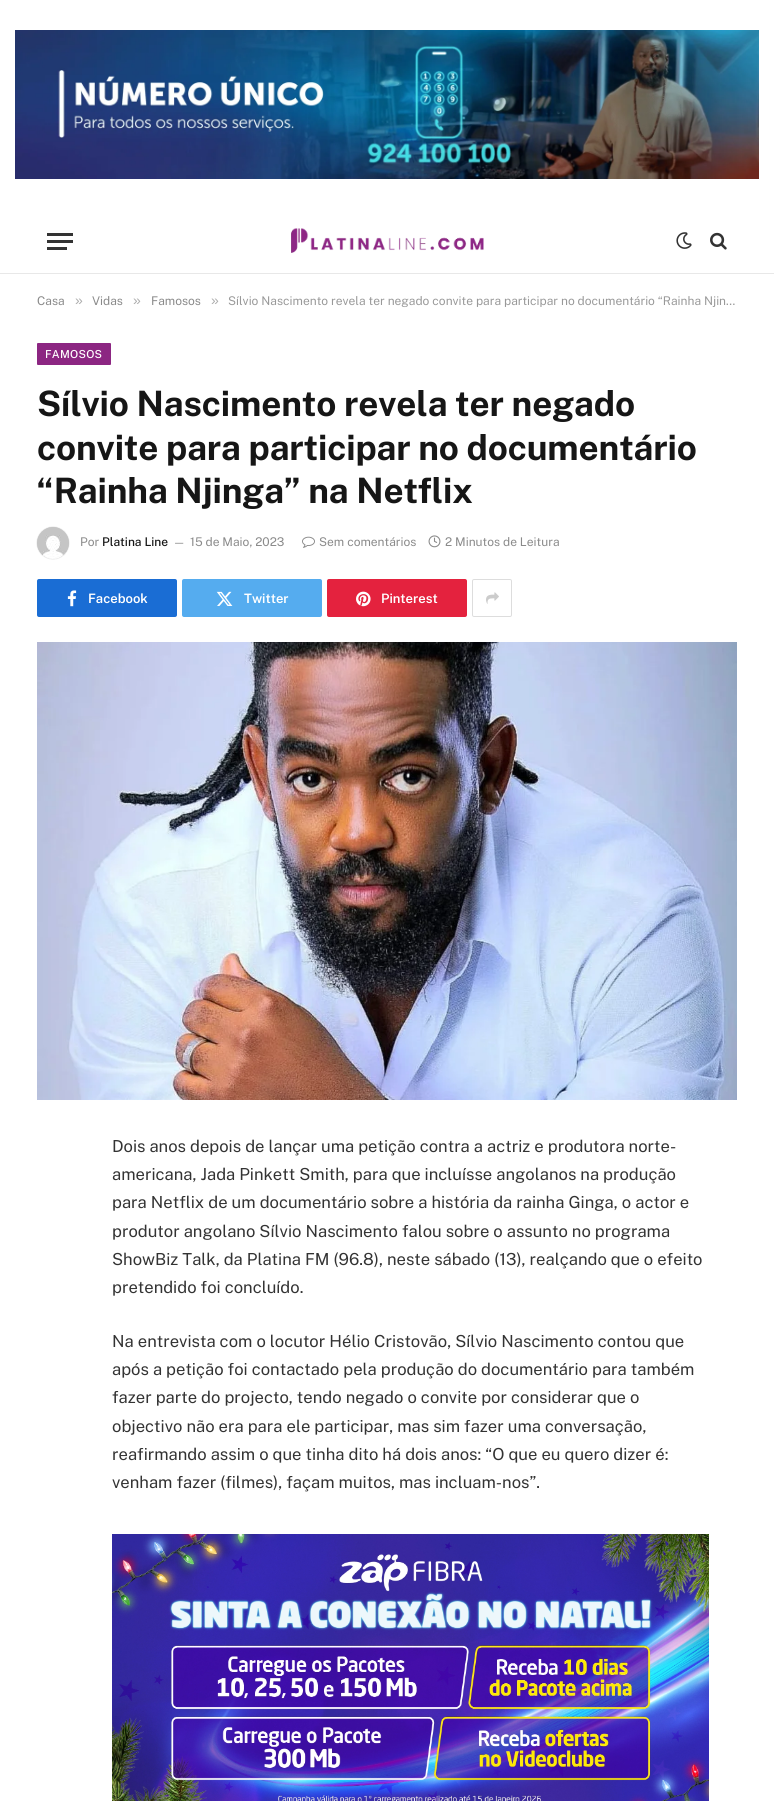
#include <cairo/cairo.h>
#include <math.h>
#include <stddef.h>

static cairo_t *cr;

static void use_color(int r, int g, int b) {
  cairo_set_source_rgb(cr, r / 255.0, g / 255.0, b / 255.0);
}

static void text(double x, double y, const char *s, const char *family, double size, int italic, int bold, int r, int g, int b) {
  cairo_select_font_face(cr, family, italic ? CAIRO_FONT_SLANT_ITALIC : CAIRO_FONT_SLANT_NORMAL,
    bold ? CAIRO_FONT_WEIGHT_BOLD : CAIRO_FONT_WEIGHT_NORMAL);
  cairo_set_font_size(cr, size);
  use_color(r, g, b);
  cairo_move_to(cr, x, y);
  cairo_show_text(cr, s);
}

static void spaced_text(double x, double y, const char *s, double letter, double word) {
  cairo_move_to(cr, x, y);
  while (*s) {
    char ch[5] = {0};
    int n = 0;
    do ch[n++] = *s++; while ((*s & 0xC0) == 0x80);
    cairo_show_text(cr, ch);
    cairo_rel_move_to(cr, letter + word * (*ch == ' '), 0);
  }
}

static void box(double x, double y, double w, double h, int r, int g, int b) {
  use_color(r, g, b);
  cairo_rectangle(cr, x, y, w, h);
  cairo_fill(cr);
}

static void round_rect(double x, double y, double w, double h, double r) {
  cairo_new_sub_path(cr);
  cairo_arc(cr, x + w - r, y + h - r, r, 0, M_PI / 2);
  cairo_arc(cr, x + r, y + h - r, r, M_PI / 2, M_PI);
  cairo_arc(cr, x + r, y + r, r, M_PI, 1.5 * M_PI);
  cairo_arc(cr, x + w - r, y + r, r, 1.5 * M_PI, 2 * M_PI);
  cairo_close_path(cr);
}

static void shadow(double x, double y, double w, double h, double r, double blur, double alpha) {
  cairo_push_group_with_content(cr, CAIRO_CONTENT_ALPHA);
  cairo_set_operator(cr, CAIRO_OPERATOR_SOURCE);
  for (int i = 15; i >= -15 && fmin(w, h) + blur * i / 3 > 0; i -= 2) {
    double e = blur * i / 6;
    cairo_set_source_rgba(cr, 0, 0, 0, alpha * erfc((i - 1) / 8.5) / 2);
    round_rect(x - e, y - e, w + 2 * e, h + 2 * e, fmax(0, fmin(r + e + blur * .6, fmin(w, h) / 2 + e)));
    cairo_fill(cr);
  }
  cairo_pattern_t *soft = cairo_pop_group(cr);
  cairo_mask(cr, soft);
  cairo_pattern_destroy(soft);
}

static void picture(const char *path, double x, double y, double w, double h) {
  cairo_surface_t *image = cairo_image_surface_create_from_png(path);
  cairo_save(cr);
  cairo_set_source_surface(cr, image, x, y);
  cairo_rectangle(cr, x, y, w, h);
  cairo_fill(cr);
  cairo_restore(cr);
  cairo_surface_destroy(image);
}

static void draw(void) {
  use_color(255, 255, 255);
  cairo_paint(cr);
  picture("img_01.png", 15, 30, 744, 149);
  box(0, 273, 774, 1, 232, 232, 232);
  box(47, 247, 20, 3, 51, 51, 51);
  box(47, 233, 26, 3, 51, 51, 51);
  box(47, 240, 26, 3, 51, 51, 51);
  picture("img_02.png", 291, 228, 193, 25);
  picture("img_03.png", 676, 232, 16, 17);
  picture("img_04.png", 710, 232, 17, 18);
  use_color(140, 38, 130);
  round_rect(37, 343, 74, 22, 1);
  cairo_fill(cr);
  use_color(0, 0, 0);
  shadow(37, 527, 32, 32, 16, 0.5, 0.2);
  picture("img_05.png", 37, 527, 32, 32);
  picture("img_06.png", 302, 536, 13, 12);
  picture("img_07.png", 428, 535, 13, 13);
  use_color(26, 109, 212);
  round_rect(37, 579, 140, 38, 2);
  cairo_fill(cr);
  picture("img_08.png", 67, 590, 10, 17);
  use_color(85, 172, 239);
  round_rect(182, 579, 140, 38, 2);
  cairo_fill(cr);
  picture("img_09.png", 216, 591, 17, 15);
  use_color(228, 34, 62);
  round_rect(327, 579, 140, 38, 2);
  cairo_fill(cr);
  picture("img_10.png", 356, 591, 15, 16);
  round_rect(472.5, 579.5, 39, 37, 1.5);
  use_color(221, 221, 221);
  cairo_set_line_width(cr, 1);
  cairo_stroke(cr);
  picture("img_11.png", 486, 592, 13, 12);
  picture("img_12.png", 37, 642, 700, 458);
  picture("img_13.png", 112, 1534, 597, 267);
  text(37, 305, "Casa", "Public Sans", 12, 0, 0, 138, 138, 138);
  text(75, 305, "»", "Liberation Sans", 14, 0, 0, 173, 173, 173);
  text(92, 305, "Vidas", "Public Sans", 12, 0, 0, 138, 138, 138);
  text(133, 305, "»", "Liberation Sans", 14, 0, 0, 173, 173, 173);
  text(151, 305, "Famosos", "Public Sans", 12, 0, 0, 138, 138, 138);
  text(211, 305, "»", "Liberation Sans", 14, 0, 0, 173, 173, 173);
  text(228, 305, "Sílvio Nascimento revela ter negado convite para participar no documentário “Rainha Njin…", "Public Sans", 12, 0, 0, 153, 153, 153);
  cairo_select_font_face(cr, "Public Sans Medium", CAIRO_FONT_SLANT_NORMAL, CAIRO_FONT_WEIGHT_NORMAL);
  cairo_set_font_size(cr, 11);
  use_color(255, 255, 255);
  spaced_text(45, 358, "FAMOSOS", 0.25, 0);
  cairo_select_font_face(cr, "Public Sans", CAIRO_FONT_SLANT_NORMAL, CAIRO_FONT_WEIGHT_BOLD);
  cairo_set_font_size(cr, 35);
  use_color(22, 22, 22);
  spaced_text(37, 416, "Sílvio Nascimento revela ter negado", -0.15, 0);
  spaced_text(37, 460, "convite para participar no documentário", -0.15, 0);
  spaced_text(37, 503, "“Rainha Njinga” na Netflix", -0.15, 0);
  text(80, 546, "Por", "Public Sans", 12, 0, 0, 138, 138, 138);
  text(102, 546, "Platina Line", "Public Sans Medium", 12, 0, 0, 22, 22, 22);
  text(173, 546, "—", "Public Sans", 11, 0, 0, 138, 138, 138);
  text(190, 546, "15 de Maio, 2023", "Public Sans", 12, 0, 0, 138, 138, 138);
  text(319, 546, "Sem comentários", "Public Sans", 12, 0, 0, 138, 138, 138);
  text(445, 546, "2 Minutos de Leitura", "Public Sans", 12, 0, 0, 138, 138, 138);
  text(88, 603, "Facebook", "Public Sans SemiBold", 13, 0, 0, 255, 255, 255);
  text(244, 603, "Twitter", "Public Sans SemiBold", 13, 0, 0, 255, 255, 255);
  text(381, 603, "Pinterest", "Public Sans SemiBold", 13, 0, 0, 255, 255, 255);
  text(112, 1152, "Dois anos depois de lançar uma petição contra a actriz e produtora norte-", "Public Sans", 16.6, 0, 0, 51, 51, 51);
  text(112, 1180, "americana, Jada Pinkett Smith, para que incluísse angolanos na produção", "Public Sans", 16.6, 0, 0, 51, 51, 51);
  text(112, 1208, "para Netflix de um documentário sobre a história da rainha Ginga, o actor e", "Public Sans", 16.6, 0, 0, 51, 51, 51);
  text(112, 1237, "produtor angolano Sílvio Nascimento falou sobre o assunto no programa", "Public Sans", 16.6, 0, 0, 51, 51, 51);
  text(112, 1265, "ShowBiz Talk, da Platina FM (96.8), neste sábado (13), realçando que o efeito", "Public Sans", 16.6, 0, 0, 51, 51, 51);
  text(112, 1293, "pretendido foi concluído.", "Public Sans", 16.6, 0, 0, 51, 51, 51);
  text(112, 1347, "Na entrevista com o locutor Hélio Cristovão, Sílvio Nascimento contou que", "Public Sans", 16.6, 0, 0, 51, 51, 51);
  text(112, 1375, "após a petição foi contactado pela produção do documentário para também", "Public Sans", 16.6, 0, 0, 51, 51, 51);
  text(112, 1403, "fazer parte do projecto, tendo negado o convite por considerar que o", "Public Sans", 16.6, 0, 0, 51, 51, 51);
  text(112, 1432, "objectivo não era para ele participar, mas sim fazer uma conversação,", "Public Sans", 16.6, 0, 0, 51, 51, 51);
  text(112, 1460, "reafirmando assim o que tinha dito há dois anos: “O que eu quero dizer é:", "Public Sans", 16.6, 0, 0, 51, 51, 51);
  text(112, 1488, "venham fazer (filmes), façam muitos, mas incluam-nos”.", "Public Sans", 16.6, 0, 0, 51, 51, 51);
}

int main(void) {
  cairo_surface_t *surface = cairo_image_surface_create(CAIRO_FORMAT_RGB24, 774, 1801);
  cr = cairo_create(surface);
  cairo_font_options_t *options = cairo_font_options_create();
  cairo_font_options_set_hint_metrics(options, CAIRO_HINT_METRICS_OFF);
  cairo_font_options_set_hint_style(options, CAIRO_HINT_STYLE_NONE);
  cairo_set_font_options(cr, options);
  cairo_set_miter_limit(cr, 4);
  draw();
  cairo_surface_write_to_png(surface, "out.png");
  cairo_font_options_destroy(options);
  cairo_destroy(cr);
  cairo_surface_destroy(surface);
  return 0;
}
